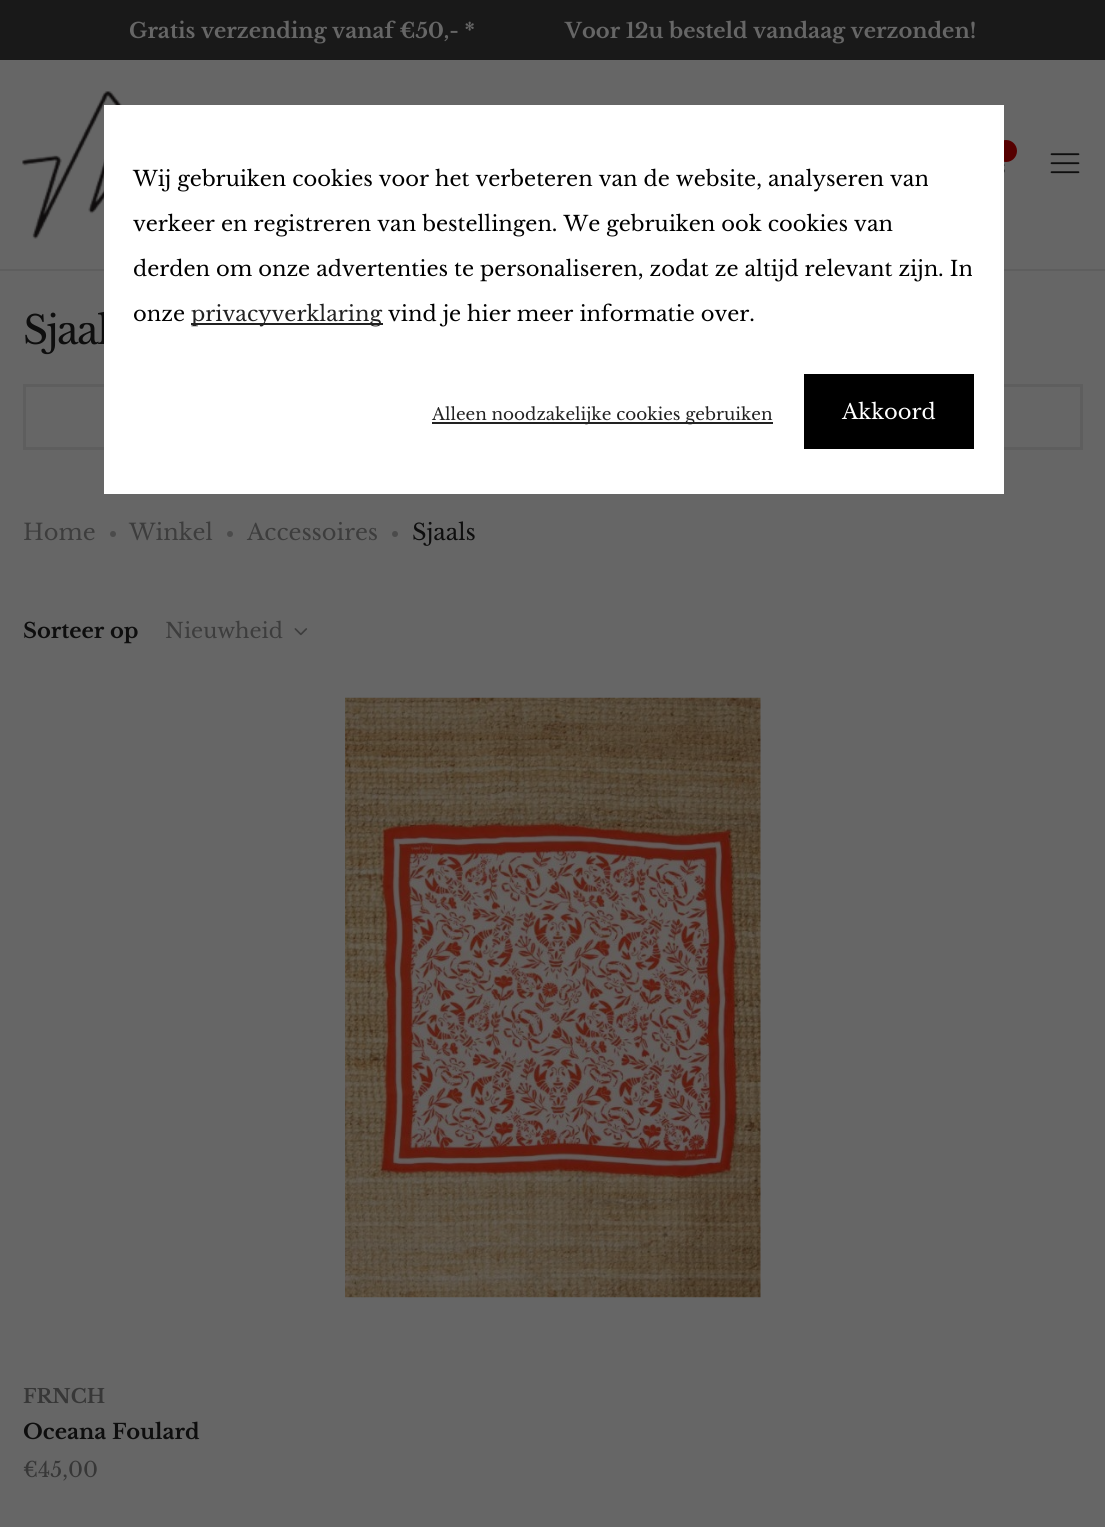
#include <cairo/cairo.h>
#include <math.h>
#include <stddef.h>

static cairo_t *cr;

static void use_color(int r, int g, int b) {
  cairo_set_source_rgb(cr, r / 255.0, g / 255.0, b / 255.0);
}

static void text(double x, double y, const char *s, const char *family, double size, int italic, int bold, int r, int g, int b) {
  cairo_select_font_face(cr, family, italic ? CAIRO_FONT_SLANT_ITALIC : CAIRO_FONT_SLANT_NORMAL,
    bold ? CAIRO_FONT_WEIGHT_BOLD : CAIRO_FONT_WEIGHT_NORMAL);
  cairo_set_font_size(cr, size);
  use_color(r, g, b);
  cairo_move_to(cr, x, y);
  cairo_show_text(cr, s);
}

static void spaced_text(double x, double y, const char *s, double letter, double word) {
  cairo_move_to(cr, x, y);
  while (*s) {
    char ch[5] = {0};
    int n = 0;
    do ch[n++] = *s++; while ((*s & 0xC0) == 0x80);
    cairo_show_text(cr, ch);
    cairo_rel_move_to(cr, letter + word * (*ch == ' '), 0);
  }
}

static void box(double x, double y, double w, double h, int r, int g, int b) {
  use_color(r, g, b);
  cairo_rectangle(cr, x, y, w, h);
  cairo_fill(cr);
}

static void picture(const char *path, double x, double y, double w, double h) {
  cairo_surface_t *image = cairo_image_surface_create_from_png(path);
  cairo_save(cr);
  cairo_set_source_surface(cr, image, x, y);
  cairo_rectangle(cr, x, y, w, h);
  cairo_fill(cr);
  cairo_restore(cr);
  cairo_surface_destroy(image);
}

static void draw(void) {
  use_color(102, 102, 102);
  cairo_paint(cr);
  box(0, 0, 1105, 60, 25, 25, 25);
  box(0, 269, 1105, 2, 94, 94, 94);
  picture("img_01.png", 22, 91, 100, 148);
  use_color(86, 0, 0);
  cairo_arc(cr, 1006, 151, 11, 0, 2 * M_PI);
  cairo_fill(cr);
  picture("img_02.png", 1004, 164, 1, 9);
  picture("img_03.png", 1050, 153, 30, 21);
  cairo_rectangle(cr, 24.5, 385.5, 1057, 63);
  use_color(94, 94, 94);
  cairo_set_line_width(cr, 3);
  cairo_stroke(cr);
  use_color(75, 75, 75);
  cairo_arc(cr, 113, 534, 3, 0, 2 * M_PI);
  cairo_fill(cr);
  cairo_arc(cr, 230, 534, 3, 0, 2 * M_PI);
  cairo_fill(cr);
  cairo_arc(cr, 395, 534, 3, 0, 2 * M_PI);
  cairo_fill(cr);
  picture("img_04.png", 294, 628, 14, 8);
  picture("img_05.png", 345, 697, 416, 601);
  text(129, 38, "Gratis verzending vanaf €50,- *", "Libre Baskerville", 21, 0, 1, 102, 102, 102);
  text(565, 38, "Voor 12u besteld vandaag verzonden!", "Libre Baskerville", 21, 0, 1, 102, 102, 102);
  cairo_select_font_face(cr, "Libre Baskerville", CAIRO_FONT_SLANT_NORMAL, CAIRO_FONT_WEIGHT_NORMAL);
  cairo_set_font_size(cr, 39);
  use_color(14, 14, 14);
  spaced_text(23, 344, "Sjaal", -1.5, 0);
  text(23, 540, "Home", "Libre Baskerville", 22.5, 0, 0, 61, 61, 61);
  text(129, 540, "Winkel", "Libre Baskerville", 22.5, 0, 0, 61, 61, 61);
  text(247, 540, "Accessoires", "Libre Baskerville", 22.5, 0, 0, 61, 61, 61);
  text(412, 540, "Sjaals", "Libre Baskerville", 22.5, 0, 0, 14, 14, 14);
  text(23, 638, "Sorteer op", "Libre Baskerville", 21, 0, 1, 14, 14, 14);
  text(165, 638, "Nieuwheid", "Libre Baskerville", 21, 0, 0, 61, 61, 61);
  text(23, 1403, "FRNCH", "Libre Baskerville", 19.5, 0, 1, 55, 55, 55);
  text(23, 1439, "Oceana Foulard", "Libre Baskerville", 21, 0, 1, 14, 14, 14);
  text(23, 1477, "€45,00", "Libre Baskerville", 21, 0, 0, 55, 55, 55);
  box(104, 105, 900, 389, 255, 255, 255);
  text(133, 186, "Wij gebruiken cookies voor het verbeteren van de website, analyseren van", "Libre Baskerville", 21, 0, 0, 0, 0, 0);
  text(133, 231, "verkeer en registreren van bestellingen. We gebruiken ook cookies van", "Libre Baskerville", 21, 0, 0, 0, 0, 0);
  text(133, 276, "derden om onze advertenties te personaliseren, zodat ze altijd relevant zijn. In", "Libre Baskerville", 21, 0, 0, 0, 0, 0);
  text(133, 321, "onze", "Libre Baskerville", 21, 0, 0, 0, 0, 0);
  box(191, 323, 192, 2, 34, 34, 34);
  text(191, 321, "privacyverklaring", "Libre Baskerville", 21, 0, 0, 34, 34, 34);
  text(388, 321, "vind je hier meer informatie over.", "Libre Baskerville", 21, 0, 0, 0, 0, 0);
  box(432, 422, 341, 2, 34, 34, 34);
  text(432, 420, "Alleen noodzakelijke cookies gebruiken", "Libre Baskerville", 16.8, 0, 0, 34, 34, 34);
  box(804, 374, 170, 75, 0, 0, 0);
  text(842, 419, "Akkoord", "Libre Baskerville", 21, 0, 0, 255, 255, 255);
}

int main(void) {
  cairo_surface_t *surface = cairo_image_surface_create(CAIRO_FORMAT_RGB24, 1105, 1527);
  cr = cairo_create(surface);
  cairo_font_options_t *options = cairo_font_options_create();
  cairo_font_options_set_hint_metrics(options, CAIRO_HINT_METRICS_OFF);
  cairo_font_options_set_hint_style(options, CAIRO_HINT_STYLE_NONE);
  cairo_set_font_options(cr, options);
  cairo_set_miter_limit(cr, 4);
  draw();
  cairo_surface_write_to_png(surface, "out.png");
  cairo_font_options_destroy(options);
  cairo_destroy(cr);
  cairo_surface_destroy(surface);
  return 0;
}
